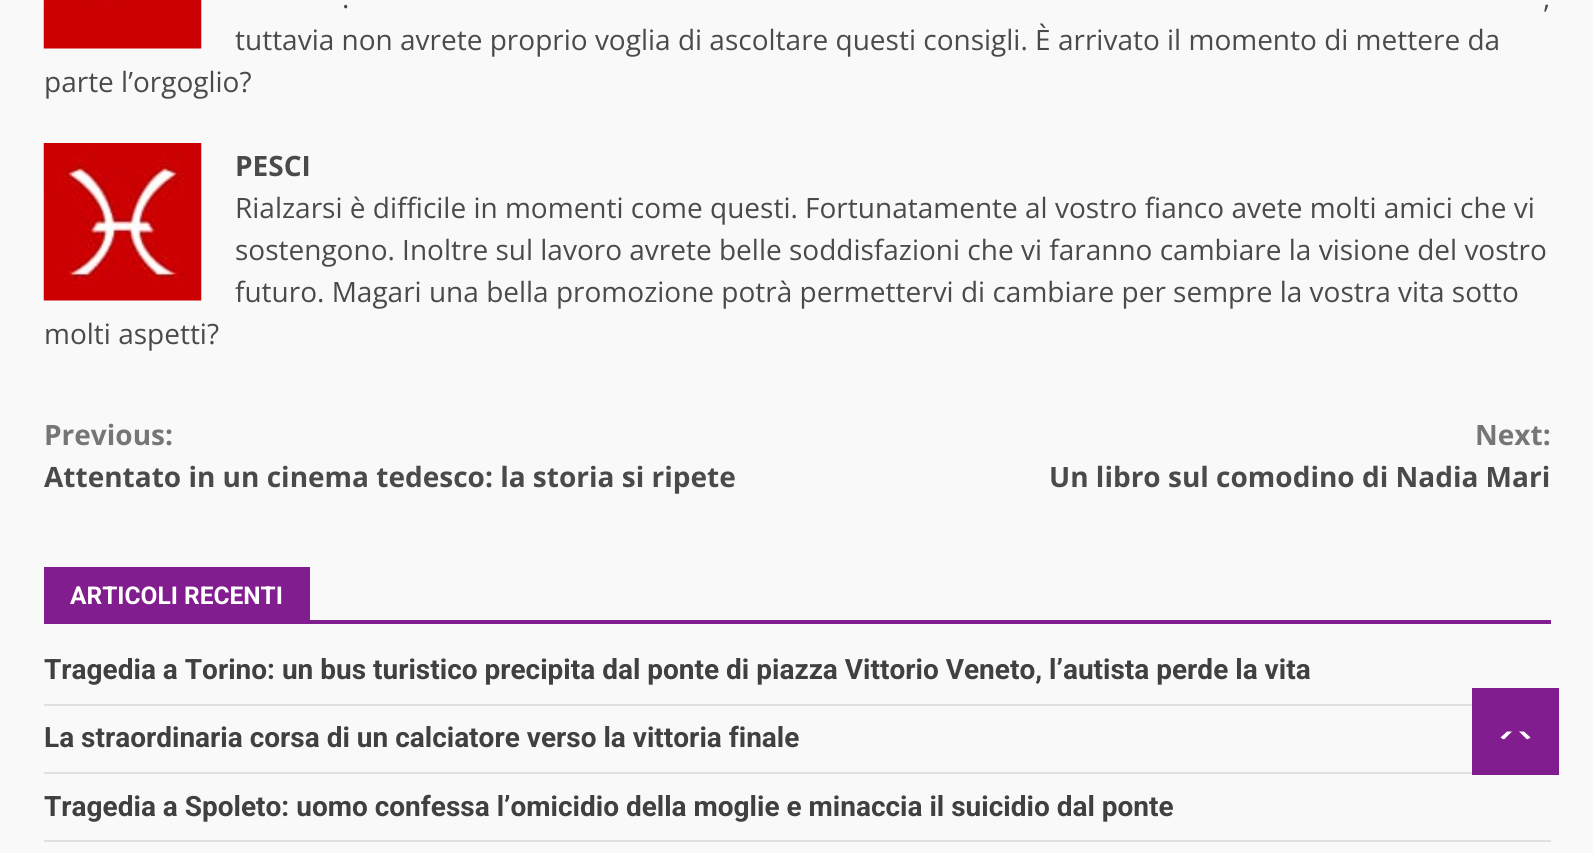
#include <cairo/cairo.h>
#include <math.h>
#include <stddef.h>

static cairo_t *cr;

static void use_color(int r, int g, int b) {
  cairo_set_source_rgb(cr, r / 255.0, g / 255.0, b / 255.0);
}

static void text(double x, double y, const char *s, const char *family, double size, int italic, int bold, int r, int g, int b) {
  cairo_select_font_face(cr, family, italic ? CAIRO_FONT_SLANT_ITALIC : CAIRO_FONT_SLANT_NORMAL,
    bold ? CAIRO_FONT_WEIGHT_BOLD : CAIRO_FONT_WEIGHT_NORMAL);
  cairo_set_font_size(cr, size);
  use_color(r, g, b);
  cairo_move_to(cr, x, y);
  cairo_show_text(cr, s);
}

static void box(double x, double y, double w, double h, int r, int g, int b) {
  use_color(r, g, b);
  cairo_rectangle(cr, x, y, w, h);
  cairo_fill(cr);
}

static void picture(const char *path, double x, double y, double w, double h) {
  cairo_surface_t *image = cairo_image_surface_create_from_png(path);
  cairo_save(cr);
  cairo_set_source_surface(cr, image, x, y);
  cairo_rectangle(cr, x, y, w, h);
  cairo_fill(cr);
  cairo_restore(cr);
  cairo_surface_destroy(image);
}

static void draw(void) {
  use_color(249, 249, 249);
  cairo_paint(cr);
  picture("img_01.png", 43, 0, 159, 49);
  picture("img_02.png", 43, 143, 159, 158);
  box(44, 620, 1507, 4, 130, 29, 143);
  box(44, 567, 266, 53, 130, 29, 143);
  box(44, 704, 1428, 2, 224, 224, 224);
  box(44, 772, 1428, 2, 224, 224, 224);
  box(44, 840, 1507, 2, 224, 224, 224);
  box(1472, 688, 87, 87, 130, 29, 143);
  use_color(255, 255, 255);
  cairo_new_path(cr);
  cairo_move_to(cr, 1530.5, 737.5);
  cairo_curve_to(cr, 1526.5, 741, 1520, 740, 1515.5, 740);
  cairo_curve_to(cr, 1511, 740, 1504.5, 741, 1500.5, 737.5);
  cairo_line_to(cr, 1507, 731.5);
  cairo_line_to(cr, 1524, 731.5);
  cairo_close_path(cr);
  cairo_fill(cr);
  use_color(130, 29, 143);
  cairo_new_path(cr);
  cairo_move_to(cr, 1533, 745.5);
  cairo_line_to(cr, 1498, 745.5);
  cairo_line_to(cr, 1515.5, 728);
  cairo_close_path(cr);
  cairo_fill(cr);
  text(342, 8, ".", "Open Sans", 28, 0, 0, 74, 74, 74);
  text(1543, 8, ",", "Open Sans", 28, 0, 0, 74, 74, 74);
  text(235, 50, "tuttavia non avrete proprio voglia di ascoltare questi consigli. È arrivato il momento di mettere da", "Open Sans", 28, 0, 0, 74, 74, 74);
  text(44, 92, "parte l’orgoglio?", "Open Sans", 28, 0, 0, 74, 74, 74);
  text(235, 176, "PESCI", "Open Sans", 28, 0, 1, 74, 74, 74);
  text(235, 218, "Rialzarsi è difficile in momenti come questi. Fortunatamente al vostro fianco avete molti amici che vi", "Open Sans", 28, 0, 0, 74, 74, 74);
  text(235, 260, "sostengono. Inoltre sul lavoro avrete belle soddisfazioni che vi faranno cambiare la visione del vostro", "Open Sans", 28, 0, 0, 74, 74, 74);
  text(235, 302, "futuro. Magari una bella promozione potrà permettervi di cambiare per sempre la vostra vita sotto", "Open Sans", 28, 0, 0, 74, 74, 74);
  text(44, 344, "molti aspetti?", "Open Sans", 28, 0, 0, 74, 74, 74);
  text(44, 445, "Previous:", "Open Sans", 28, 0, 1, 118, 118, 118);
  text(44, 487, "Attentato in un cinema tedesco: la storia si ripete", "Open Sans", 28, 0, 1, 74, 74, 74);
  text(1475, 445, "Next:", "Open Sans", 28, 0, 1, 118, 118, 118);
  text(1049, 487, "Un libro sul comodino di Nadia Mari", "Open Sans", 28, 0, 1, 74, 74, 74);
  text(70, 604, "ARTICOLI RECENTI", "Roboto", 24.5, 0, 1, 255, 255, 255);
  text(44, 679, "Tragedia a Torino: un bus turistico precipita dal ponte di piazza Vittorio Veneto, l’autista perde la vita", "Roboto", 28, 0, 1, 64, 64, 64);
  text(44, 747, "La straordinaria corsa di un calciatore verso la vittoria finale", "Roboto", 28, 0, 1, 64, 64, 64);
  text(44, 816, "Tragedia a Spoleto: uomo confessa l’omicidio della moglie e minaccia il suicidio dal ponte", "Roboto", 28, 0, 1, 64, 64, 64);
}

int main(void) {
  cairo_surface_t *surface = cairo_image_surface_create(CAIRO_FORMAT_RGB24, 1593, 853);
  cr = cairo_create(surface);
  cairo_font_options_t *options = cairo_font_options_create();
  cairo_font_options_set_hint_metrics(options, CAIRO_HINT_METRICS_OFF);
  cairo_font_options_set_hint_style(options, CAIRO_HINT_STYLE_NONE);
  cairo_set_font_options(cr, options);
  cairo_set_miter_limit(cr, 4);
  draw();
  cairo_surface_write_to_png(surface, "out.png");
  cairo_font_options_destroy(options);
  cairo_destroy(cr);
  cairo_surface_destroy(surface);
  return 0;
}
